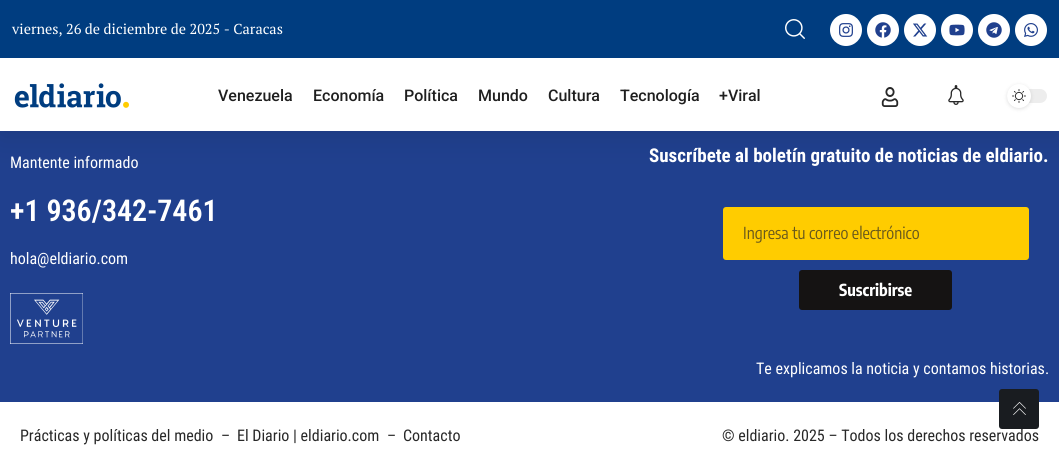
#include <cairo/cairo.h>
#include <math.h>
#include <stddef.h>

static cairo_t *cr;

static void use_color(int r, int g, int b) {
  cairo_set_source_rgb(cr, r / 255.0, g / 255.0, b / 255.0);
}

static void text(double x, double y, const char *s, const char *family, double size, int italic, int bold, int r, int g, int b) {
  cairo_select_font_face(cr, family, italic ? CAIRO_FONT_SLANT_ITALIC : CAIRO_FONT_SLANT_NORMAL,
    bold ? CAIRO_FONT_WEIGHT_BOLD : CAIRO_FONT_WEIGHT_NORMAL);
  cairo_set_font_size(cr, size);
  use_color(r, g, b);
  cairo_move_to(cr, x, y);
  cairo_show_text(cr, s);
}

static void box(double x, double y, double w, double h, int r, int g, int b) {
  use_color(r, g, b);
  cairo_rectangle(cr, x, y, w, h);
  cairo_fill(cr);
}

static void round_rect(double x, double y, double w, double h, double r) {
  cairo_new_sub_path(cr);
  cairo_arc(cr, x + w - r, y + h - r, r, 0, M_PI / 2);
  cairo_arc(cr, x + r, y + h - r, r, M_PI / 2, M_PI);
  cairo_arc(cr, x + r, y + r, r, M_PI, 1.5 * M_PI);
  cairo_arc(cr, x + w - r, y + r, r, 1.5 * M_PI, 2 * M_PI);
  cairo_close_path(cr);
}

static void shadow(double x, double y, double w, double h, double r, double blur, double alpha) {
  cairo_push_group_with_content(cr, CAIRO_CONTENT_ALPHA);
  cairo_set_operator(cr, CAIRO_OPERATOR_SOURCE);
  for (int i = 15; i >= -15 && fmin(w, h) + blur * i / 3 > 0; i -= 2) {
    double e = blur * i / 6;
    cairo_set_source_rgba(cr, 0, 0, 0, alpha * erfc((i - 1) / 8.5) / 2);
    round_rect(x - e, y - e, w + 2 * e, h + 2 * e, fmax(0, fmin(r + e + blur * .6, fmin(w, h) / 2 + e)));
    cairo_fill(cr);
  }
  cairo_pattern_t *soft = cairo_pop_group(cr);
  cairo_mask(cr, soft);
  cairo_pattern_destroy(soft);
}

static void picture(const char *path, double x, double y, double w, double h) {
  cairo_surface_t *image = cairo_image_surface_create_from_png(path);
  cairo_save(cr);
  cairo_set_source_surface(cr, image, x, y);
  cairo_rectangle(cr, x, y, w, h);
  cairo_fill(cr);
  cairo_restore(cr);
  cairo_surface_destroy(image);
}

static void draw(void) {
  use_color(255, 255, 255);
  cairo_paint(cr);
  box(0, 131, 1059, 271, 32, 64, 142);
  use_color(0, 0, 0);
  shadow(0, 5, 1059, 131, 0, 15, 0.1);
  box(0, 0, 1059, 58, 0, 61, 128);
  picture("img_01.png", 785, 19, 20, 20);
  use_color(255, 255, 255);
  cairo_arc(cr, 846, 30, 16, 0, 2 * M_PI);
  cairo_fill(cr);
  picture("img_02.png", 839, 23, 14, 14);
  cairo_arc(cr, 883, 30, 16, 0, 2 * M_PI);
  cairo_fill(cr);
  picture("img_03.png", 875, 22, 16, 16);
  cairo_arc(cr, 920, 30, 16, 0, 2 * M_PI);
  cairo_fill(cr);
  picture("img_04.png", 913, 23, 15, 14);
  cairo_arc(cr, 957, 30, 16, 0, 2 * M_PI);
  cairo_fill(cr);
  picture("img_05.png", 949, 24, 16, 12);
  cairo_arc(cr, 994, 30, 16, 0, 2 * M_PI);
  cairo_fill(cr);
  picture("img_06.png", 986, 22, 16, 16);
  cairo_arc(cr, 1031, 30, 16, 0, 2 * M_PI);
  cairo_fill(cr);
  picture("img_07.png", 1024, 23, 14, 14);
  box(0, 58, 1059, 73, 255, 255, 255);
  picture("img_08.png", 14, 83, 115, 25);
  picture("img_09.png", 881, 87, 18, 20);
  picture("img_10.png", 948, 85, 16, 20);
  use_color(237, 237, 237);
  round_rect(1007, 89, 40, 14, 7);
  cairo_fill(cr);
  use_color(0, 0, 0);
  shadow(1007, 85, 24, 24, 12, 2, 0.12);
  use_color(255, 255, 255);
  cairo_arc(cr, 1019, 96, 12, 0, 2 * M_PI);
  cairo_fill(cr);
  picture("img_11.png", 1012, 89, 14, 14);
  picture("img_12.png", 10, 293, 73, 51);
  use_color(255, 204, 0);
  round_rect(723, 207, 306, 53, 3);
  cairo_fill(cr);
  use_color(21, 19, 19);
  round_rect(799, 270, 153, 40, 3);
  cairo_fill(cr);
  use_color(25, 28, 32);
  round_rect(999, 389, 40, 40, 3);
  cairo_fill(cr);
  picture("img_13.png", 1013, 402, 13, 13);
  text(12, 34, "viernes, 26 de diciembre de 2025 - Caracas", "PT Serif", 14.4, 0, 0, 255, 255, 255);
  text(218, 101, "Venezuela", "Roboto Medium", 16, 0, 0, 31, 31, 31);
  text(313, 101, "Economía", "Roboto Medium", 16, 0, 0, 31, 31, 31);
  text(404, 101, "Política", "Roboto Medium", 16, 0, 0, 31, 31, 31);
  text(478, 101, "Mundo", "Roboto Medium", 16, 0, 0, 31, 31, 31);
  text(548, 101, "Cultura", "Roboto Medium", 16, 0, 0, 31, 31, 31);
  text(620, 101, "Tecnología", "Roboto Medium", 16, 0, 0, 31, 31, 31);
  text(719, 101, "+Viral", "Roboto Medium", 16, 0, 0, 31, 31, 31);
  text(10, 168, "Mantente informado", "Roboto Condensed", 16, 0, 0, 255, 255, 255);
  text(10, 221, "+1 936/342-7461", "Roboto Condensed SemiBold", 30, 0, 0, 255, 255, 255);
  text(10, 264, "hola@eldiario.com", "Roboto Condensed", 16, 0, 0, 255, 255, 255);
  text(649, 162, "Suscríbete al boletín gratuito de noticias de eldiario.", "Roboto Condensed", 19, 0, 1, 255, 255, 255);
  text(743, 239, "Ingresa tu correo electrónico", "Encode Sans Condensed", 16.5, 0, 0, 105, 89, 28);
  text(839, 296, "Suscribirse", "Encode Sans Condensed", 16.5, 0, 1, 255, 255, 255);
  text(756, 374, "Te explicamos la noticia y contamos historias.", "Roboto Condensed", 16, 0, 0, 255, 255, 255);
  text(20, 441, "Prácticas y políticas del medio", "Roboto Condensed", 16, 0, 0, 40, 40, 40);
  text(221, 441, "–", "Roboto Condensed", 16, 0, 0, 40, 40, 40);
  text(237, 441, "El Diario | eldiario.com", "Roboto Condensed", 16, 0, 0, 40, 40, 40);
  text(387, 441, "–", "Roboto Condensed", 16, 0, 0, 40, 40, 40);
  text(403, 441, "Contacto", "Roboto Condensed", 16, 0, 0, 40, 40, 40);
  text(722, 441, "© eldiario. 2025 – Todos los derechos reservados", "Roboto Condensed", 16, 0, 0, 40, 40, 40);
}

int main(void) {
  cairo_surface_t *surface = cairo_image_surface_create(CAIRO_FORMAT_RGB24, 1059, 469);
  cr = cairo_create(surface);
  cairo_font_options_t *options = cairo_font_options_create();
  cairo_font_options_set_hint_metrics(options, CAIRO_HINT_METRICS_OFF);
  cairo_font_options_set_hint_style(options, CAIRO_HINT_STYLE_NONE);
  cairo_set_font_options(cr, options);
  cairo_set_miter_limit(cr, 4);
  draw();
  cairo_surface_write_to_png(surface, "out.png");
  cairo_font_options_destroy(options);
  cairo_destroy(cr);
  cairo_surface_destroy(surface);
  return 0;
}
